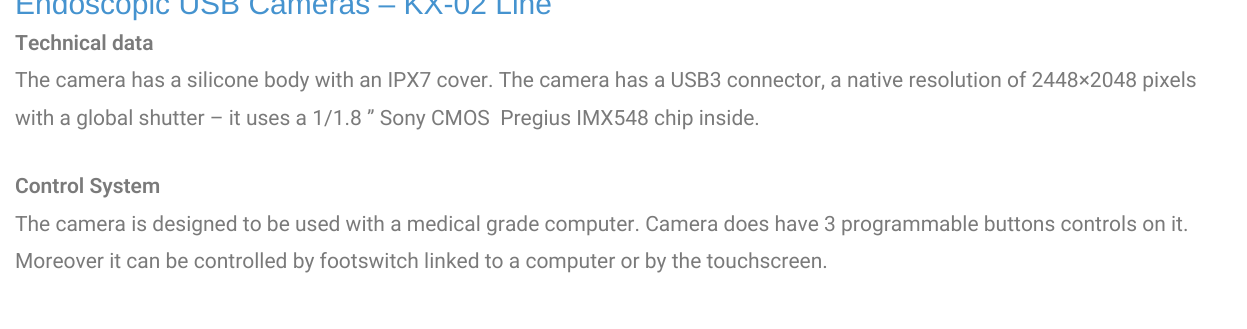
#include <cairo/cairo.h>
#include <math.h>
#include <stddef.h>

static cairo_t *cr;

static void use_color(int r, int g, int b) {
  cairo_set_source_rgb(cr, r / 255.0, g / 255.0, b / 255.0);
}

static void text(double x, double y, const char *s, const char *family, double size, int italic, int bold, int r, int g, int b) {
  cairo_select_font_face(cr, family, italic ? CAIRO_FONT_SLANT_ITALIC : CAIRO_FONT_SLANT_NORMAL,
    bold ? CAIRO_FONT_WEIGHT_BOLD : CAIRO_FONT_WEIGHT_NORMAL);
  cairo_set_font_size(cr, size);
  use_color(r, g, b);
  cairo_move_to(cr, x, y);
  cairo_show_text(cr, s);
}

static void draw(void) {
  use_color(255, 255, 255);
  cairo_paint(cr);
  text(15, 14, "Endoscopic USB Cameras – KX-02 Line", "Liberation Sans", 30, 0, 0, 69, 147, 207);
  text(15, 50, "Technical data", "Roboto SemiBold", 21, 0, 0, 122, 122, 122);
  text(15, 87, "The camera has a silicone body with an IPX7 cover. The camera has a USB3 connector, a native resolution of 2448×2048 pixels", "Roboto", 21, 0, 0, 122, 122, 122);
  text(15, 125, "with a global shutter – it uses a 1/1.8 ” Sony CMOS  Pregius IMX548 chip inside.", "Roboto", 21, 0, 0, 122, 122, 122);
  text(15, 193, "Control System", "Roboto SemiBold", 21, 0, 0, 122, 122, 122);
  text(15, 231, "The camera is designed to be used with a medical grade computer. Camera does have 3 programmable buttons controls on it.", "Roboto", 21, 0, 0, 122, 122, 122);
  text(15, 268, "Moreover it can be controlled by footswitch linked to a computer or by the touchscreen.", "Roboto", 21, 0, 0, 122, 122, 122);
}

int main(void) {
  cairo_surface_t *surface = cairo_image_surface_create(CAIRO_FORMAT_RGB24, 1247, 329);
  cr = cairo_create(surface);
  cairo_font_options_t *options = cairo_font_options_create();
  cairo_font_options_set_hint_metrics(options, CAIRO_HINT_METRICS_OFF);
  cairo_font_options_set_hint_style(options, CAIRO_HINT_STYLE_NONE);
  cairo_set_font_options(cr, options);
  cairo_set_miter_limit(cr, 4);
  draw();
  cairo_surface_write_to_png(surface, "out.png");
  cairo_font_options_destroy(options);
  cairo_destroy(cr);
  cairo_surface_destroy(surface);
  return 0;
}
